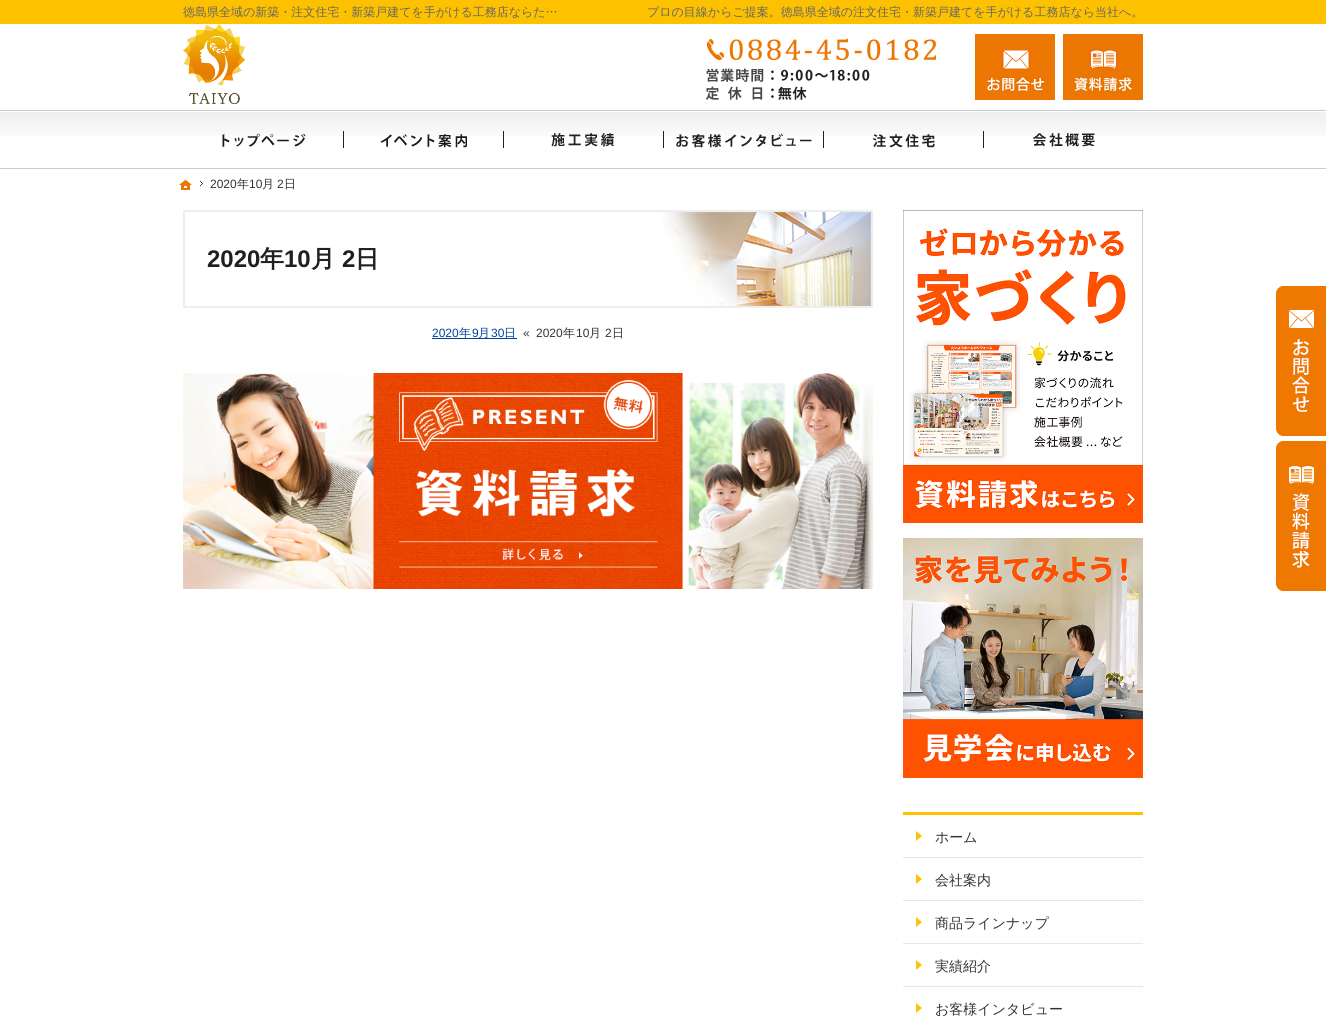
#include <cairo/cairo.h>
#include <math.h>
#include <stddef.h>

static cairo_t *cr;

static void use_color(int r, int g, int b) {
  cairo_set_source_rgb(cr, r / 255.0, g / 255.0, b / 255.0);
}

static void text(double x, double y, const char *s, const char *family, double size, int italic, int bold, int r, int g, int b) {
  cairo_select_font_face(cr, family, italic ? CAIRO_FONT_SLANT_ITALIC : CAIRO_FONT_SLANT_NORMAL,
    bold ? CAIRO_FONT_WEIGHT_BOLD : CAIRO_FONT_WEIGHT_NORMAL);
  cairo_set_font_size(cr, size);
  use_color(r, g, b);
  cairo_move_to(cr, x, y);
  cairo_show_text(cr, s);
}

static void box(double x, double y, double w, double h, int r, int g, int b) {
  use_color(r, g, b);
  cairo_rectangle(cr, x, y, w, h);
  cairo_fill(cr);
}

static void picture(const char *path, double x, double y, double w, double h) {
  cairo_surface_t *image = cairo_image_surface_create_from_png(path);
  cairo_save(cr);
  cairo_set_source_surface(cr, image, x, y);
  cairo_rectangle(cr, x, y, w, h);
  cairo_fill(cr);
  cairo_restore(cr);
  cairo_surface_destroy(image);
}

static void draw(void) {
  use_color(255, 255, 255);
  cairo_paint(cr);
  box(0, 0, 1326, 24, 253, 193, 0);
  picture("img_01.png", 183, 24, 62, 80);
  cairo_rectangle(cr, 184, 211, 688, 96);
  use_color(238, 238, 238);
  cairo_stroke(cr);
  picture("img_02.png", 663, 212, 208, 94);
  box(432, 338, 85, 1, 0, 68, 153);
  picture("img_03.png", 183, 373, 690, 216);
  picture("img_04.png", 903, 210, 240, 313);
  picture("img_05.png", 903, 538, 240, 240);
  box(903, 812, 240, 3, 253, 193, 0);
  picture("img_06.png", 916, 831, 6, 10);
  box(903, 857, 240, 1, 230, 230, 230);
  picture("img_06.png", 916, 874, 6, 10);
  box(903, 900, 240, 1, 230, 230, 230);
  picture("img_06.png", 916, 917, 6, 10);
  box(903, 943, 240, 1, 230, 230, 230);
  picture("img_06.png", 916, 960, 6, 10);
  box(903, 986, 240, 1, 230, 230, 230);
  picture("img_06.png", 916, 1003, 6, 10);
  picture("img_07.png", 705, 38, 232, 62);
  box(975, 34, 80, 66, 237, 119, 3);
  picture("img_08.png", 987, 49, 58, 43);
  box(1063, 34, 80, 66, 237, 119, 3);
  picture("img_09.png", 1074, 49, 59, 43);
  picture("img_10.png", 0, 112, 1326, 24);
  box(0, 110, 1326, 1, 204, 204, 204);
  box(0, 168, 1326, 1, 204, 204, 204);
  picture("img_11.png", 183, 112, 160, 24);
  picture("img_12.png", 222, 133, 84, 14);
  picture("img_11.png", 343, 112, 160, 24);
  box(343, 131, 1, 17, 32, 32, 32);
  picture("img_13.png", 380, 134, 87, 14);
  picture("img_11.png", 503, 112, 160, 24);
  box(503, 131, 1, 17, 32, 32, 32);
  picture("img_14.png", 551, 133, 64, 14);
  picture("img_11.png", 663, 112, 160, 24);
  box(663, 131, 1, 17, 32, 32, 32);
  picture("img_15.png", 676, 133, 136, 15);
  picture("img_11.png", 823, 112, 160, 24);
  box(823, 131, 1, 17, 32, 32, 32);
  picture("img_16.png", 872, 134, 63, 14);
  picture("img_11.png", 983, 112, 160, 24);
  box(983, 131, 1, 17, 32, 32, 32);
  picture("img_17.png", 1033, 133, 62, 14);
  picture("img_18.png", 179, 180, 13, 10);
  picture("img_19.png", 200, 181, 3, 5);
  use_color(239, 133, 28);
  cairo_new_path(cr);
  cairo_move_to(cr, 1284, 286);
  cairo_line_to(cr, 1326, 286);
  cairo_line_to(cr, 1326, 436);
  cairo_line_to(cr, 1284, 436);
  cairo_curve_to(cr, 1279.5, 436, 1276, 432.5, 1276, 428);
  cairo_line_to(cr, 1276, 294);
  cairo_curve_to(cr, 1276, 289.5, 1279.5, 286, 1284, 286);
  cairo_close_path(cr);
  cairo_fill(cr);
  picture("img_20.png", 1276, 286, 50, 150);
  use_color(238, 120, 0);
  cairo_new_path(cr);
  cairo_move_to(cr, 1284, 441);
  cairo_line_to(cr, 1326, 441);
  cairo_line_to(cr, 1326, 591);
  cairo_line_to(cr, 1284, 591);
  cairo_curve_to(cr, 1279.5, 591, 1276, 587.5, 1276, 583);
  cairo_line_to(cr, 1276, 449);
  cairo_curve_to(cr, 1276, 444.5, 1279.5, 441, 1284, 441);
  cairo_close_path(cr);
  cairo_fill(cr);
  picture("img_21.png", 1276, 441, 38, 150);
  text(183, 16, "徳島県全域の新築・注文住宅・新築戸建てを手がける工務店ならた…", "WenQuanYi Zen Hei Medium", 12, 0, 0, 102, 102, 102);
  text(647, 16, "プロの目線からご提案。徳島県全域の注文住宅・新築戸建てを手がける工務店なら当社へ。", "WenQuanYi Zen Hei Medium", 12, 0, 0, 102, 102, 102);
  text(207, 267, "2020", "Liberation Sans", 24, 0, 1, 32, 32, 32);
  text(260, 267, "年", "WenQuanYi Zen Hei", 24, 0, 1, 32, 32, 32);
  text(284, 267, "10", "Liberation Sans", 24, 0, 1, 32, 32, 32);
  text(311, 267, "月", "WenQuanYi Zen Hei", 24, 0, 1, 32, 32, 32);
  text(342, 267, "2", "Liberation Sans", 24, 0, 1, 32, 32, 32);
  text(355, 267, "日", "WenQuanYi Zen Hei", 24, 0, 1, 32, 32, 32);
  text(432, 337, "2020", "Liberation Sans", 12, 0, 0, 0, 68, 153);
  text(459, 337, "年", "WenQuanYi Zen Hei Medium", 12, 0, 0, 0, 68, 153);
  text(472, 337, "9", "Liberation Sans", 12, 0, 0, 0, 68, 153);
  text(478, 337, "月", "WenQuanYi Zen Hei Medium", 12, 0, 0, 0, 68, 153);
  text(491, 337, "30", "Liberation Sans", 12, 0, 0, 0, 68, 153);
  text(504, 337, "日", "WenQuanYi Zen Hei Medium", 12, 0, 0, 0, 68, 153);
  text(523, 337, "«", "Liberation Sans", 12, 0, 0, 51, 51, 51);
  text(536, 337, "2020", "Liberation Sans", 12, 0, 0, 51, 51, 51);
  text(563, 337, "年", "WenQuanYi Zen Hei Medium", 12, 0, 0, 51, 51, 51);
  text(576, 337, "10", "Liberation Sans", 12, 0, 0, 51, 51, 51);
  text(589, 337, "月", "WenQuanYi Zen Hei Medium", 12, 0, 0, 51, 51, 51);
  text(605, 337, "2", "Liberation Sans", 12, 0, 0, 51, 51, 51);
  text(612, 337, "日", "WenQuanYi Zen Hei Medium", 12, 0, 0, 51, 51, 51);
  text(935, 842, "ホーム", "WenQuanYi Zen Hei Medium", 14, 0, 0, 51, 51, 51);
  text(935, 885, "会社案内", "WenQuanYi Zen Hei Medium", 14, 0, 0, 51, 51, 51);
  text(935, 928, "商品ラインナップ", "WenQuanYi Zen Hei Medium", 14, 0, 0, 51, 51, 51);
  text(935, 971, "実績紹介", "WenQuanYi Zen Hei Medium", 14, 0, 0, 51, 51, 51);
  text(935, 1014, "お客様インタビュー", "WenQuanYi Zen Hei Medium", 14, 0, 0, 51, 51, 51);
  text(210, 188, "2020", "Liberation Sans", 12, 0, 0, 51, 51, 51);
  text(237, 188, "年", "WenQuanYi Zen Hei Medium", 12, 0, 0, 51, 51, 51);
  text(249, 188, "10", "Liberation Sans", 12, 0, 0, 51, 51, 51);
  text(262, 188, "月", "WenQuanYi Zen Hei Medium", 12, 0, 0, 51, 51, 51);
  text(277, 188, "2", "Liberation Sans", 12, 0, 0, 51, 51, 51);
  text(284, 188, "日", "WenQuanYi Zen Hei Medium", 12, 0, 0, 51, 51, 51);
}

int main(void) {
  cairo_surface_t *surface = cairo_image_surface_create(CAIRO_FORMAT_RGB24, 1326, 1019);
  cr = cairo_create(surface);
  cairo_font_options_t *options = cairo_font_options_create();
  cairo_font_options_set_hint_metrics(options, CAIRO_HINT_METRICS_OFF);
  cairo_font_options_set_hint_style(options, CAIRO_HINT_STYLE_NONE);
  cairo_set_font_options(cr, options);
  cairo_set_miter_limit(cr, 4);
  draw();
  cairo_surface_write_to_png(surface, "out.png");
  cairo_font_options_destroy(options);
  cairo_destroy(cr);
  cairo_surface_destroy(surface);
  return 0;
}
